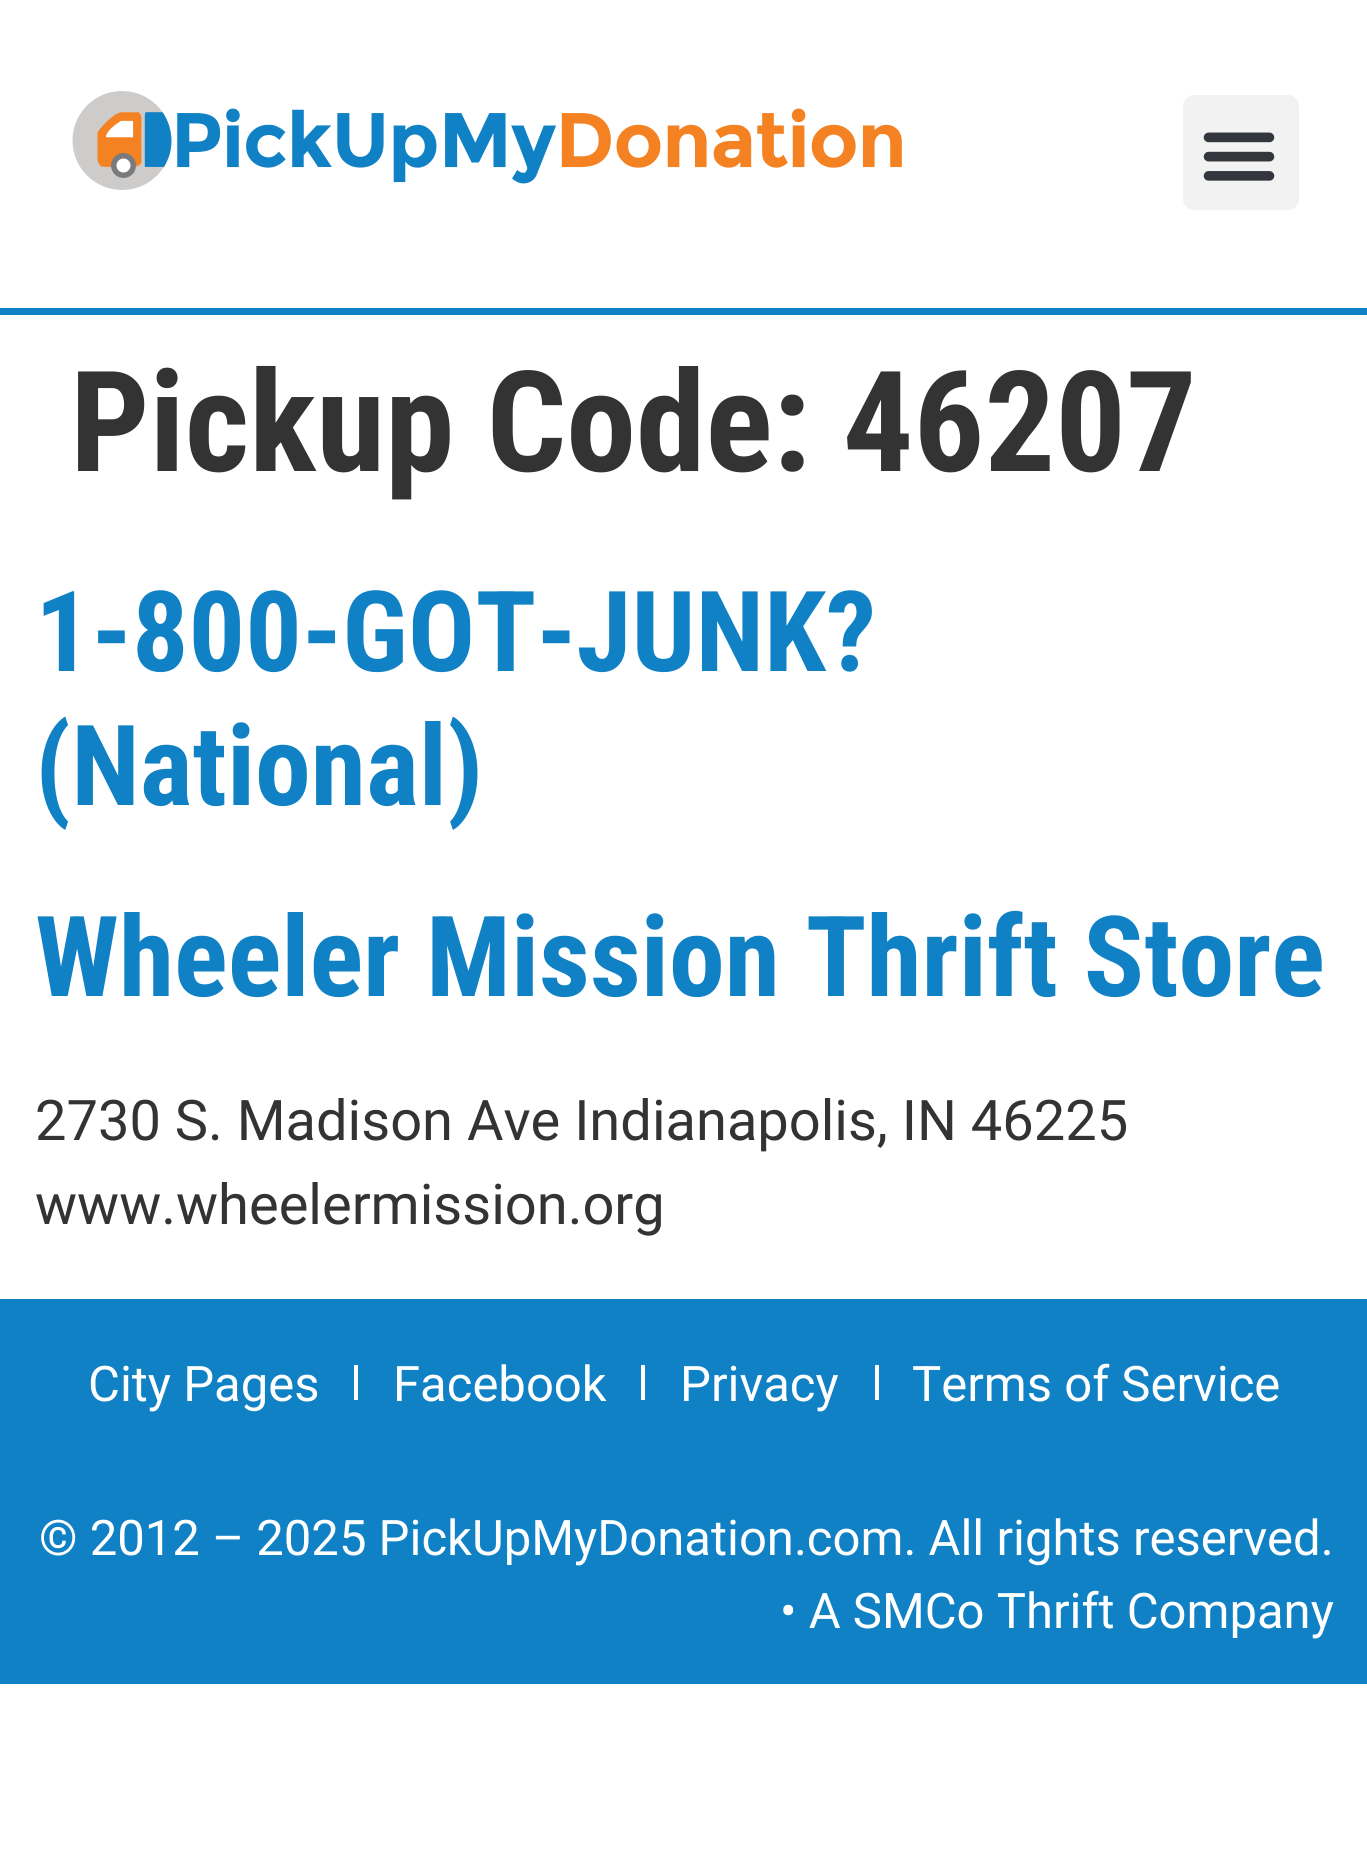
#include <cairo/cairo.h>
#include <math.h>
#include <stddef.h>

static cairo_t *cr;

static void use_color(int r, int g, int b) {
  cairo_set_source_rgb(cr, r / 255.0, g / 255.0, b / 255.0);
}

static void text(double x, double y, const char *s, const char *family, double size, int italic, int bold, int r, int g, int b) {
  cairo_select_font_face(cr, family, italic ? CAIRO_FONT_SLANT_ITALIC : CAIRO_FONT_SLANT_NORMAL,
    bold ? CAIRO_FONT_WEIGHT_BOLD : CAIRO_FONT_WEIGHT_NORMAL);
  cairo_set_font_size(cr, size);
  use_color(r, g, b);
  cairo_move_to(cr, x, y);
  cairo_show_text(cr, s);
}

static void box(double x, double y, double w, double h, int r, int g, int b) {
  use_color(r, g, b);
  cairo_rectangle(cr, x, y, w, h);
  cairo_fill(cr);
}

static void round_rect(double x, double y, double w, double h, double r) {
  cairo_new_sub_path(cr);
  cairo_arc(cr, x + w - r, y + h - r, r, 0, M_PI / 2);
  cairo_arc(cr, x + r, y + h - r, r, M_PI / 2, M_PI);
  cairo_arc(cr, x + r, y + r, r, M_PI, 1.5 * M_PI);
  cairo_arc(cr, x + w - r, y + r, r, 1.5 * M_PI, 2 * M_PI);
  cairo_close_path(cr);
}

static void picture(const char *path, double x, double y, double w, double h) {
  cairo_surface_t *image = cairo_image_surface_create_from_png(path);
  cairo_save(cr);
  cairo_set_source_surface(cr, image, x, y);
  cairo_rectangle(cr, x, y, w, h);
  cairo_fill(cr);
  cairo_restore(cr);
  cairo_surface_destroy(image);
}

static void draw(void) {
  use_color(255, 255, 255);
  cairo_paint(cr);
  box(0, 308, 1367, 7, 16, 129, 196);
  picture("img_01.png", 72, 91, 830, 99);
  use_color(242, 242, 242);
  round_rect(1183, 95, 116, 115, 11);
  cairo_fill(cr);
  picture("img_02.png", 1203, 132, 72, 49);
  box(0, 1299, 1367, 385, 16, 129, 196);
  box(354, 1365, 4, 35, 255, 255, 255);
  box(641, 1365, 4, 35, 255, 255, 255);
  box(875, 1365, 4, 35, 255, 255, 255);
  text(70, 471, "Pickup Code: 46207", "Roboto Condensed", 140, 0, 1, 51, 51, 51);
  text(35, 671, "1-800-GOT-JUNK?", "Roboto Condensed", 112, 0, 1, 16, 129, 196);
  text(35, 805, "(National)", "Roboto Condensed", 112, 0, 1, 16, 129, 196);
  text(35, 996, "Wheeler Mission Thrift Store", "Roboto Condensed", 112, 0, 1, 16, 129, 196);
  text(35, 1140, "2730 S. Madison Ave Indianapolis, IN 46225", "Roboto", 56, 0, 0, 51, 51, 51);
  text(35, 1224, "www.wheelermission.org", "Roboto", 56, 0, 0, 51, 51, 51);
  text(88, 1401, "City Pages", "Roboto", 49, 0, 0, 255, 255, 255);
  text(393, 1401, "Facebook", "Roboto", 49, 0, 0, 255, 255, 255);
  text(680, 1401, "Privacy", "Roboto", 49, 0, 0, 255, 255, 255);
  text(912, 1401, "Terms of Service", "Roboto", 49, 0, 0, 255, 255, 255);
  text(39, 1555, "© 2012 – 2025 PickUpMyDonation.com. All rights reserved.", "Roboto", 49, 0, 0, 255, 255, 255);
  text(780, 1628, "• A SMCo Thrift Company", "Roboto", 49, 0, 0, 255, 255, 255);
}

int main(void) {
  cairo_surface_t *surface = cairo_image_surface_create(CAIRO_FORMAT_RGB24, 1367, 1850);
  cr = cairo_create(surface);
  cairo_font_options_t *options = cairo_font_options_create();
  cairo_font_options_set_hint_metrics(options, CAIRO_HINT_METRICS_OFF);
  cairo_font_options_set_hint_style(options, CAIRO_HINT_STYLE_NONE);
  cairo_set_font_options(cr, options);
  cairo_set_miter_limit(cr, 4);
  draw();
  cairo_surface_write_to_png(surface, "out.png");
  cairo_font_options_destroy(options);
  cairo_destroy(cr);
  cairo_surface_destroy(surface);
  return 0;
}
